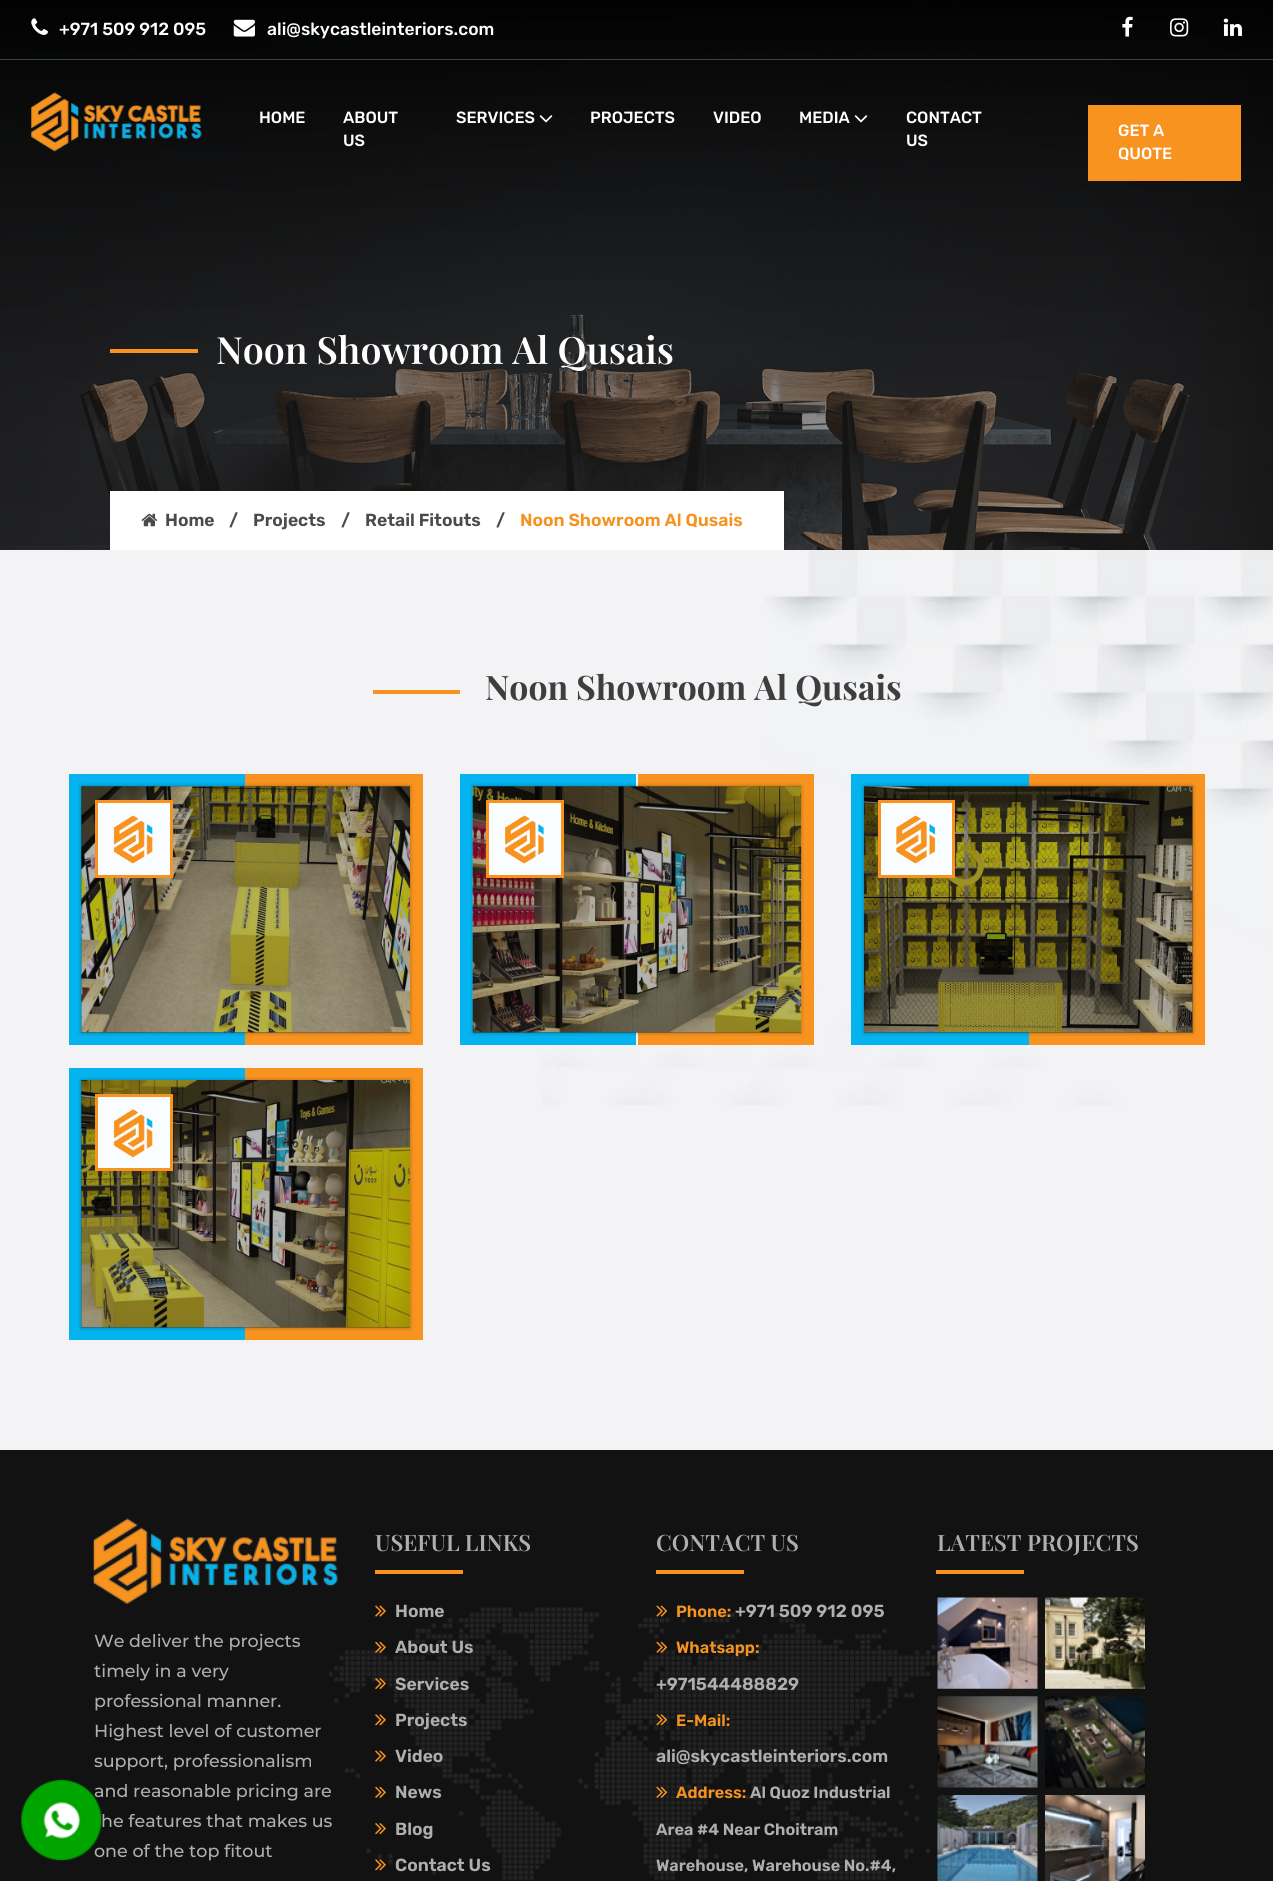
#include <cairo/cairo.h>
#include <math.h>
#include <stddef.h>

static cairo_t *cr;

static void use_color(int r, int g, int b) {
  cairo_set_source_rgb(cr, r / 255.0, g / 255.0, b / 255.0);
}

static void text(double x, double y, const char *s, const char *family, double size, int italic, int bold, int r, int g, int b) {
  cairo_select_font_face(cr, family, italic ? CAIRO_FONT_SLANT_ITALIC : CAIRO_FONT_SLANT_NORMAL,
    bold ? CAIRO_FONT_WEIGHT_BOLD : CAIRO_FONT_WEIGHT_NORMAL);
  cairo_set_font_size(cr, size);
  use_color(r, g, b);
  cairo_move_to(cr, x, y);
  cairo_show_text(cr, s);
}

static void box(double x, double y, double w, double h, int r, int g, int b) {
  use_color(r, g, b);
  cairo_rectangle(cr, x, y, w, h);
  cairo_fill(cr);
}

static void round_rect(double x, double y, double w, double h, double r) {
  cairo_new_sub_path(cr);
  cairo_arc(cr, x + w - r, y + h - r, r, 0, M_PI / 2);
  cairo_arc(cr, x + r, y + h - r, r, M_PI / 2, M_PI);
  cairo_arc(cr, x + r, y + r, r, M_PI, 1.5 * M_PI);
  cairo_arc(cr, x + w - r, y + r, r, 1.5 * M_PI, 2 * M_PI);
  cairo_close_path(cr);
}

static void shadow(double x, double y, double w, double h, double r, double blur, double alpha) {
  cairo_push_group_with_content(cr, CAIRO_CONTENT_ALPHA);
  cairo_set_operator(cr, CAIRO_OPERATOR_SOURCE);
  for (int i = 15; i >= -15 && fmin(w, h) + blur * i / 3 > 0; i -= 2) {
    double e = blur * i / 6;
    cairo_set_source_rgba(cr, 0, 0, 0, alpha * erfc((i - 1) / 8.5) / 2);
    round_rect(x - e, y - e, w + 2 * e, h + 2 * e, fmax(0, fmin(r + e + blur * .6, fmin(w, h) / 2 + e)));
    cairo_fill(cr);
  }
  cairo_pattern_t *soft = cairo_pop_group(cr);
  cairo_mask(cr, soft);
  cairo_pattern_destroy(soft);
}

static void picture(const char *path, double x, double y, double w, double h) {
  cairo_surface_t *image = cairo_image_surface_create_from_png(path);
  cairo_save(cr);
  cairo_set_source_surface(cr, image, x, y);
  cairo_rectangle(cr, x, y, w, h);
  cairo_fill(cr);
  cairo_restore(cr);
  cairo_surface_destroy(image);
}

static void draw(void) {
  use_color(18, 18, 18);
  cairo_paint(cr);
  picture("img_09.png", 0, 0, 1273, 550);
  box(0, 59, 1273, 1, 66, 66, 66);
  picture("img_01.png", 31, 18, 17, 17);
  picture("img_02.png", 233, 19, 22, 18);
  picture("img_03.png", 1122, 16, 11, 21);
  picture("img_04.png", 1170, 18, 19, 19);
  picture("img_05.png", 1223, 18, 19, 18);
  picture("img_06.png", 31, 92, 171, 60);
  picture("img_07.png", 539, 115, 14, 8);
  picture("img_08.png", 854, 115, 14, 8);
  box(1088, 105, 153, 76, 248, 147, 31);
  box(110, 349, 88, 4, 248, 147, 31);
  box(110, 491, 674, 59, 255, 255, 255);
  picture("img_10.png", 141, 513, 17, 14);
  box(0, 550, 1273, 900, 243, 243, 245);
  picture("img_11.png", 541, 550, 732, 556);
  box(373, 690, 87, 4, 248, 147, 31);
  box(69, 774, 176, 271, 5, 179, 239);
  box(245, 774, 178, 271, 248, 147, 31);
  use_color(0, 0, 0);
  shadow(81, 786, 329, 247, 0, 2, 0.3);
  picture("img_12.png", 81, 786, 329, 247);
  cairo_set_source_rgba(cr, 0.055, 0.055, 0.055, 0.31);
  cairo_rectangle(cr, 81, 786, 329, 247);
  cairo_fill(cr);
  use_color(249, 253, 255);
  cairo_rectangle(cr, 96.5, 801.5, 75, 75);
  cairo_fill_preserve(cr);
  use_color(248, 147, 31);
  cairo_set_line_width(cr, 3);
  cairo_stroke(cr);
  picture("img_13.png", 113, 815, 40, 49);
  box(460, 774, 176, 271, 5, 179, 239);
  box(638, 774, 176, 271, 248, 147, 31);
  use_color(0, 0, 0);
  shadow(473, 786, 328, 247, 0, 2, 0.3);
  picture("img_14.png", 472, 786, 330, 247);
  cairo_set_source_rgba(cr, 0.055, 0.055, 0.055, 0.31);
  cairo_rectangle(cr, 473, 786, 328, 247);
  cairo_fill(cr);
  use_color(249, 253, 255);
  cairo_rectangle(cr, 487.5, 801.5, 75, 75);
  cairo_fill_preserve(cr);
  use_color(248, 147, 31);
  cairo_stroke(cr);
  picture("img_15.png", 505, 815, 39, 49);
  box(851, 774, 178, 271, 5, 179, 239);
  box(1029, 774, 176, 271, 248, 147, 31);
  use_color(0, 0, 0);
  shadow(864, 786, 329, 247, 0, 2, 0.3);
  picture("img_16.png", 863, 786, 330, 247);
  cairo_set_source_rgba(cr, 0.055, 0.055, 0.055, 0.31);
  cairo_rectangle(cr, 864, 786, 329, 247);
  cairo_fill(cr);
  use_color(249, 253, 255);
  cairo_rectangle(cr, 879.5, 801.5, 74, 75);
  cairo_fill_preserve(cr);
  use_color(248, 147, 31);
  cairo_stroke(cr);
  picture("img_17.png", 896, 815, 40, 49);
  box(69, 1068, 176, 272, 5, 179, 239);
  box(245, 1068, 178, 272, 248, 147, 31);
  use_color(0, 0, 0);
  shadow(81, 1080, 329, 248, 0, 2, 0.3);
  picture("img_18.png", 81, 1080, 329, 248);
  cairo_set_source_rgba(cr, 0.055, 0.055, 0.055, 0.31);
  cairo_rectangle(cr, 81, 1080, 329, 248);
  cairo_fill(cr);
  use_color(249, 253, 255);
  cairo_rectangle(cr, 96.5, 1095.5, 75, 74);
  cairo_fill_preserve(cr);
  use_color(248, 147, 31);
  cairo_stroke(cr);
  picture("img_19.png", 113, 1109, 40, 49);
  picture("img_21.png", 329, 1607, 609, 273);
  box(375, 1570, 88, 4, 248, 147, 31);
  picture("img_22.png", 375, 1605, 11, 12);
  picture("img_23.png", 375, 1641, 11, 12);
  picture("img_24.png", 375, 1678, 11, 12);
  picture("img_25.png", 375, 1714, 11, 12);
  picture("img_22.png", 375, 1750, 11, 12);
  picture("img_26.png", 375, 1786, 11, 12);
  picture("img_27.png", 375, 1823, 11, 12);
  picture("img_25.png", 375, 1859, 11, 12);
  box(656, 1570, 88, 4, 248, 147, 31);
  picture("img_28.png", 656, 1605, 12, 12);
  picture("img_29.png", 656, 1641, 12, 12);
  picture("img_30.png", 656, 1714, 12, 12);
  picture("img_31.png", 656, 1786, 12, 12);
  box(936, 1570, 88, 4, 248, 147, 31);
  picture("img_32.png", 937, 1597, 101, 92);
  picture("img_33.png", 1045, 1597, 100, 92);
  picture("img_34.png", 937, 1696, 101, 92);
  picture("img_35.png", 1045, 1696, 100, 92);
  picture("img_36.png", 937, 1795, 101, 86);
  picture("img_37.png", 1045, 1795, 100, 86);
  picture("img_38.png", 93, 1518, 245, 86);
  text(59, 35, "+971 509 912 095", "Rubik Medium", 17.5, 0, 0, 255, 255, 255);
  text(267, 35, "ali@skycastleinteriors.com", "Rubik Medium", 17.5, 0, 0, 255, 255, 255);
  text(259, 123, "HOME", "Rubik Medium", 16.25, 0, 0, 255, 255, 255);
  text(343, 123, "ABOUT", "Rubik Medium", 16.25, 0, 0, 255, 255, 255);
  text(343, 146, "US", "Rubik Medium", 16.25, 0, 0, 255, 255, 255);
  text(456, 123, "SERVICES", "Rubik Medium", 16.25, 0, 0, 255, 255, 255);
  text(590, 123, "PROJECTS", "Rubik Medium", 16.25, 0, 0, 255, 255, 255);
  text(713, 123, "VIDEO", "Rubik Medium", 16.25, 0, 0, 255, 255, 255);
  text(799, 123, "MEDIA", "Rubik Medium", 16.25, 0, 0, 255, 255, 255);
  text(906, 123, "CONTACT", "Rubik Medium", 16.25, 0, 0, 255, 255, 255);
  text(906, 146, "US", "Rubik Medium", 16.25, 0, 0, 255, 255, 255);
  text(1118, 136, "GET A", "Rubik Medium", 16.25, 0, 0, 255, 255, 255);
  text(1118, 159, "QUOTE", "Rubik Medium", 16.25, 0, 0, 255, 255, 255);
  text(216, 364, "Noon Showroom Al Qusais", "Playfair Display SemiBold", 37.5, 0, 0, 255, 255, 255);
  text(165, 526, "Home", "Rubik SemiBold", 17.5, 0, 0, 74, 74, 74);
  text(229, 526, "/", "Rubik SemiBold", 17.5, 0, 0, 74, 74, 74);
  text(253, 526, "Projects", "Rubik SemiBold", 17.5, 0, 0, 74, 74, 74);
  text(341, 526, "/", "Rubik SemiBold", 17.5, 0, 0, 74, 74, 74);
  text(365, 526, "Retail Fitouts", "Rubik SemiBold", 17.5, 0, 0, 74, 74, 74);
  text(496, 526, "/", "Rubik SemiBold", 17.5, 0, 0, 74, 74, 74);
  text(520, 526, "Noon Showroom Al Qusais", "Rubik SemiBold", 17.5, 0, 0, 245, 147, 32);
  text(485, 700, "Noon Showroom Al Qusais", "Playfair Display", 33.75, 0, 1, 62, 62, 62);
  text(375, 1551, "USEFUL LINKS", "Playfair Display SemiBold", 22.5, 0, 0, 175, 175, 175);
  text(395, 1617, "Home", "Rubik SemiBold", 17.5, 0, 0, 175, 175, 175);
  text(395, 1653, "About Us", "Rubik SemiBold", 17.5, 0, 0, 175, 175, 175);
  text(395, 1690, "Services", "Rubik SemiBold", 17.5, 0, 0, 175, 175, 175);
  text(395, 1726, "Projects", "Rubik SemiBold", 17.5, 0, 0, 175, 175, 175);
  text(395, 1762, "Video", "Rubik SemiBold", 17.5, 0, 0, 175, 175, 175);
  text(395, 1798, "News", "Rubik SemiBold", 17.5, 0, 0, 175, 175, 175);
  text(395, 1835, "Blog", "Rubik SemiBold", 17.5, 0, 0, 175, 175, 175);
  text(395, 1871, "Contact Us", "Rubik SemiBold", 17.5, 0, 0, 175, 175, 175);
  text(656, 1551, "CONTACT US", "Playfair Display SemiBold", 22.5, 0, 0, 175, 175, 175);
  text(676, 1617, "Phone:", "Rubik SemiBold", 16.25, 0, 0, 245, 147, 32);
  text(735, 1617, "+971 509 912 095", "Rubik SemiBold", 17.5, 0, 0, 175, 175, 175);
  text(676, 1653, "Whatsapp:", "Rubik SemiBold", 16.25, 0, 0, 245, 147, 32);
  text(656, 1690, "+971544488829", "Rubik SemiBold", 17.5, 0, 0, 175, 175, 175);
  text(676, 1726, "E-Mail:", "Rubik SemiBold", 16.25, 0, 0, 245, 147, 32);
  text(656, 1762, "ali@skycastleinteriors.com", "Rubik SemiBold", 17.5, 0, 0, 175, 175, 175);
  text(676, 1798, "Address:", "Rubik SemiBold", 16.25, 0, 0, 245, 147, 32);
  text(750, 1798, "Al Quoz Industrial", "Rubik SemiBold", 16.25, 0, 0, 175, 175, 175);
  text(656, 1835, "Area #4 Near Choitram", "Rubik SemiBold", 16.25, 0, 0, 175, 175, 175);
  text(656, 1871, "Warehouse, Warehouse No.#4,", "Rubik SemiBold", 16.25, 0, 0, 175, 175, 175);
  text(937, 1551, "LATEST PROJECTS", "Playfair Display SemiBold", 22.5, 0, 0, 175, 175, 175);
  text(94, 1647, "We deliver the projects", "Montserrat Medium", 17.5, 0, 0, 175, 175, 175);
  text(94, 1677, "timely in a very", "Montserrat Medium", 17.5, 0, 0, 175, 175, 175);
  text(94, 1707, "professional manner.", "Montserrat Medium", 17.5, 0, 0, 175, 175, 175);
  text(94, 1737, "Highest level of customer", "Montserrat Medium", 17.5, 0, 0, 175, 175, 175);
  text(94, 1767, "support, professionalism", "Montserrat Medium", 17.5, 0, 0, 175, 175, 175);
  text(94, 1797, "and reasonable pricing are", "Montserrat Medium", 17.5, 0, 0, 175, 175, 175);
  text(101, 1827, "he features that makes us", "Montserrat Medium", 17.5, 0, 0, 175, 175, 175);
  text(94, 1857, "one of the top fitout", "Montserrat Medium", 17.5, 0, 0, 175, 175, 175);
  picture("img_20.png", 21, 1779, 81, 82);
}

int main(void) {
  cairo_surface_t *surface = cairo_image_surface_create(CAIRO_FORMAT_RGB24, 1273, 1881);
  cr = cairo_create(surface);
  cairo_font_options_t *options = cairo_font_options_create();
  cairo_font_options_set_hint_metrics(options, CAIRO_HINT_METRICS_OFF);
  cairo_font_options_set_hint_style(options, CAIRO_HINT_STYLE_NONE);
  cairo_set_font_options(cr, options);
  cairo_set_miter_limit(cr, 4);
  draw();
  cairo_surface_write_to_png(surface, "out.png");
  cairo_font_options_destroy(options);
  cairo_destroy(cr);
  cairo_surface_destroy(surface);
  return 0;
}
